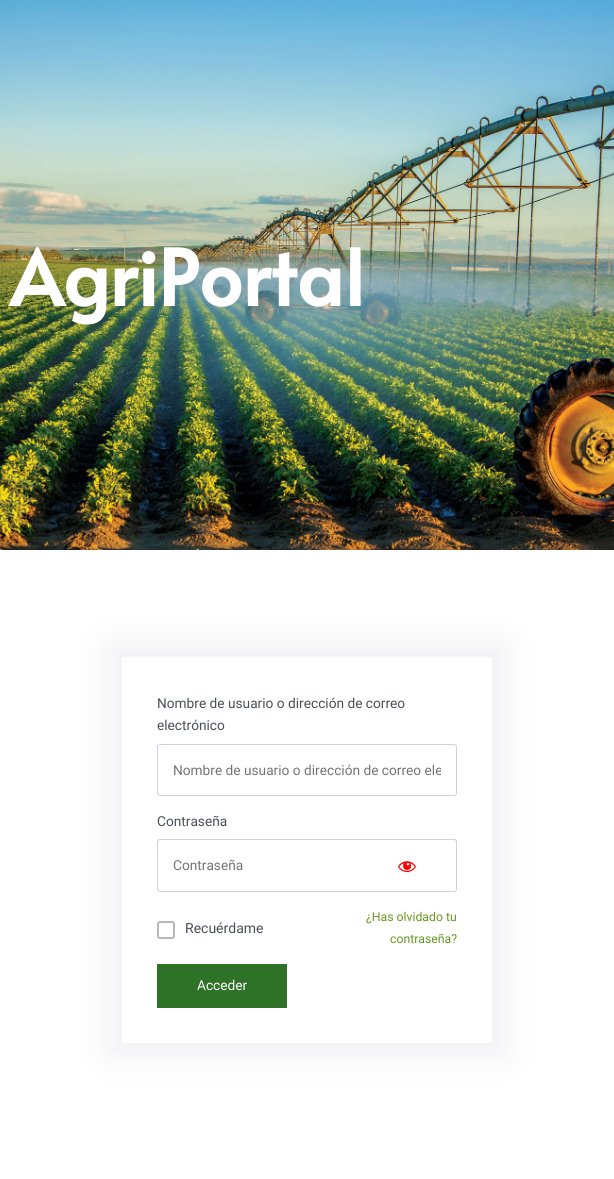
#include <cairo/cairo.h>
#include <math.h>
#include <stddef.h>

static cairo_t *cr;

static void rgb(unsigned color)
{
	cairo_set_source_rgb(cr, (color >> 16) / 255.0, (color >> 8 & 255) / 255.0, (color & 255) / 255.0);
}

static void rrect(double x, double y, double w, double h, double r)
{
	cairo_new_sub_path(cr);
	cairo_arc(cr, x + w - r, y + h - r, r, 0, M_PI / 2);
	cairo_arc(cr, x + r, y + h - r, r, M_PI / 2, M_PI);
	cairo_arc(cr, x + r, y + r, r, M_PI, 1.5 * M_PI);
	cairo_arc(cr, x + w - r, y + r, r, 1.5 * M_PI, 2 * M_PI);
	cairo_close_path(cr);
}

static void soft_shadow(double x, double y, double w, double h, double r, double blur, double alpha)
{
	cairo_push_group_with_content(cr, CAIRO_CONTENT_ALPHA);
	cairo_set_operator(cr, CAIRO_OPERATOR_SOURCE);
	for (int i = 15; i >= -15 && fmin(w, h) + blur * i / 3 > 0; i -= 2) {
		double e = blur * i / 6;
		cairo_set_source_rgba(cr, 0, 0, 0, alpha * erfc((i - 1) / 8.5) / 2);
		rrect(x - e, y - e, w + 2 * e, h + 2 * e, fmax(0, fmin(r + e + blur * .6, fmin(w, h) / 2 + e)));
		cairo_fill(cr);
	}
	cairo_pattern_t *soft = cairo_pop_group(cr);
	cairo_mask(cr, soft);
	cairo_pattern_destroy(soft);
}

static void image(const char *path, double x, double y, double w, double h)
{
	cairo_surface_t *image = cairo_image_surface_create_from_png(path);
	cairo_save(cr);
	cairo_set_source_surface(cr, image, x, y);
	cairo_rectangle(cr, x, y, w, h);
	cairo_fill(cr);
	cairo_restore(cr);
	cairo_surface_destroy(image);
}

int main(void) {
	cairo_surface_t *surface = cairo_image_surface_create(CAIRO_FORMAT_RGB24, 614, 1179);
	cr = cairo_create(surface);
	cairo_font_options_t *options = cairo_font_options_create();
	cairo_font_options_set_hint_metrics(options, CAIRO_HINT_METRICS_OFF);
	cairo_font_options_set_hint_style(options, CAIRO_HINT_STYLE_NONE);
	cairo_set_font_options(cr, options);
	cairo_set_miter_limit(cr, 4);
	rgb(0xffffff);
	cairo_paint(cr);
	image("img/1.png", 0, 0, 614, 550);
	cairo_save(cr);
	cairo_set_fill_rule(cr, CAIRO_FILL_RULE_EVEN_ODD);
	cairo_new_path(cr);
	cairo_move_to(cr, 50, 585);
	cairo_line_to(cr, 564, 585);
	cairo_line_to(cr, 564, 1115);
	cairo_line_to(cr, 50, 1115);
	cairo_close_path(cr);
	cairo_move_to(cr, 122, 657);
	cairo_line_to(cr, 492, 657);
	cairo_line_to(cr, 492, 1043);
	cairo_line_to(cr, 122, 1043);
	cairo_close_path(cr);
	cairo_clip(cr);
	rgb(0x020835);
	soft_shadow(108, 643, 398, 414, 0, 19, 0.06);
	cairo_restore(cr);
	rrect(157.5, 744.5, 299, 51, 2.5);
	rgb(0xcfcfe8);
	cairo_set_line_width(cr, 1);
	cairo_stroke(cr);
	rrect(157.5, 839.5, 299, 52, 2.5);
	cairo_stroke(cr);
	image("img/2.png", 398, 861, 18, 12);
	rrect(158, 922, 16, 16, 2);
	rgb(0xb7b7b7);
	cairo_set_line_width(cr, 2);
	cairo_stroke(cr);
	rgb(0x2e7227);
	cairo_rectangle(cr, 157, 964, 130, 44);
	cairo_fill(cr);
	cairo_select_font_face(cr, "Alata", CAIRO_FONT_SLANT_NORMAL, CAIRO_FONT_WEIGHT_BOLD);
	cairo_set_font_size(cr, 77);
	rgb(0xffffff);
	cairo_move_to(cr, 10, 306);
	cairo_show_text(cr, "AgriPortal");
	cairo_select_font_face(cr, "Roboto", CAIRO_FONT_SLANT_NORMAL, CAIRO_FONT_WEIGHT_NORMAL);
	cairo_set_font_size(cr, 13.7);
	rgb(0x4b4f58);
	cairo_move_to(cr, 157, 708);
	cairo_show_text(cr, "Nombre de usuario o dirección de correo");
	cairo_move_to(cr, 157, 730);
	cairo_show_text(cr, "electrónico");
	cairo_save(cr);
	cairo_rectangle(cr, 173, 762, 268, 16);
	cairo_clip(cr);
	rgb(0x757575);
	cairo_move_to(cr, 173, 775);
	cairo_show_text(cr, "Nombre de usuario o dirección de correo ele");
	cairo_restore(cr);
	cairo_move_to(cr, 157, 826);
	cairo_show_text(cr, "Contraseña");
	rgb(0x757575);
	cairo_move_to(cr, 173, 870);
	cairo_show_text(cr, "Contraseña");
	cairo_set_font_size(cr, 14);
	rgb(0x4b4f58);
	cairo_move_to(cr, 185, 933);
	cairo_show_text(cr, "Recuérdame");
	cairo_set_font_size(cr, 12.25);
	rgb(0x67981d);
	cairo_move_to(cr, 366, 921);
	cairo_show_text(cr, "¿Has olvidado tu");
	cairo_move_to(cr, 390, 943);
	cairo_show_text(cr, "contraseña?");
	cairo_set_font_size(cr, 13.7);
	rgb(0xffffff);
	cairo_move_to(cr, 197, 990);
	cairo_show_text(cr, "Acceder");
	cairo_surface_write_to_png(surface, "page.png");
	cairo_font_options_destroy(options);
	cairo_destroy(cr);
	cairo_surface_destroy(surface);
	return 0;
}
